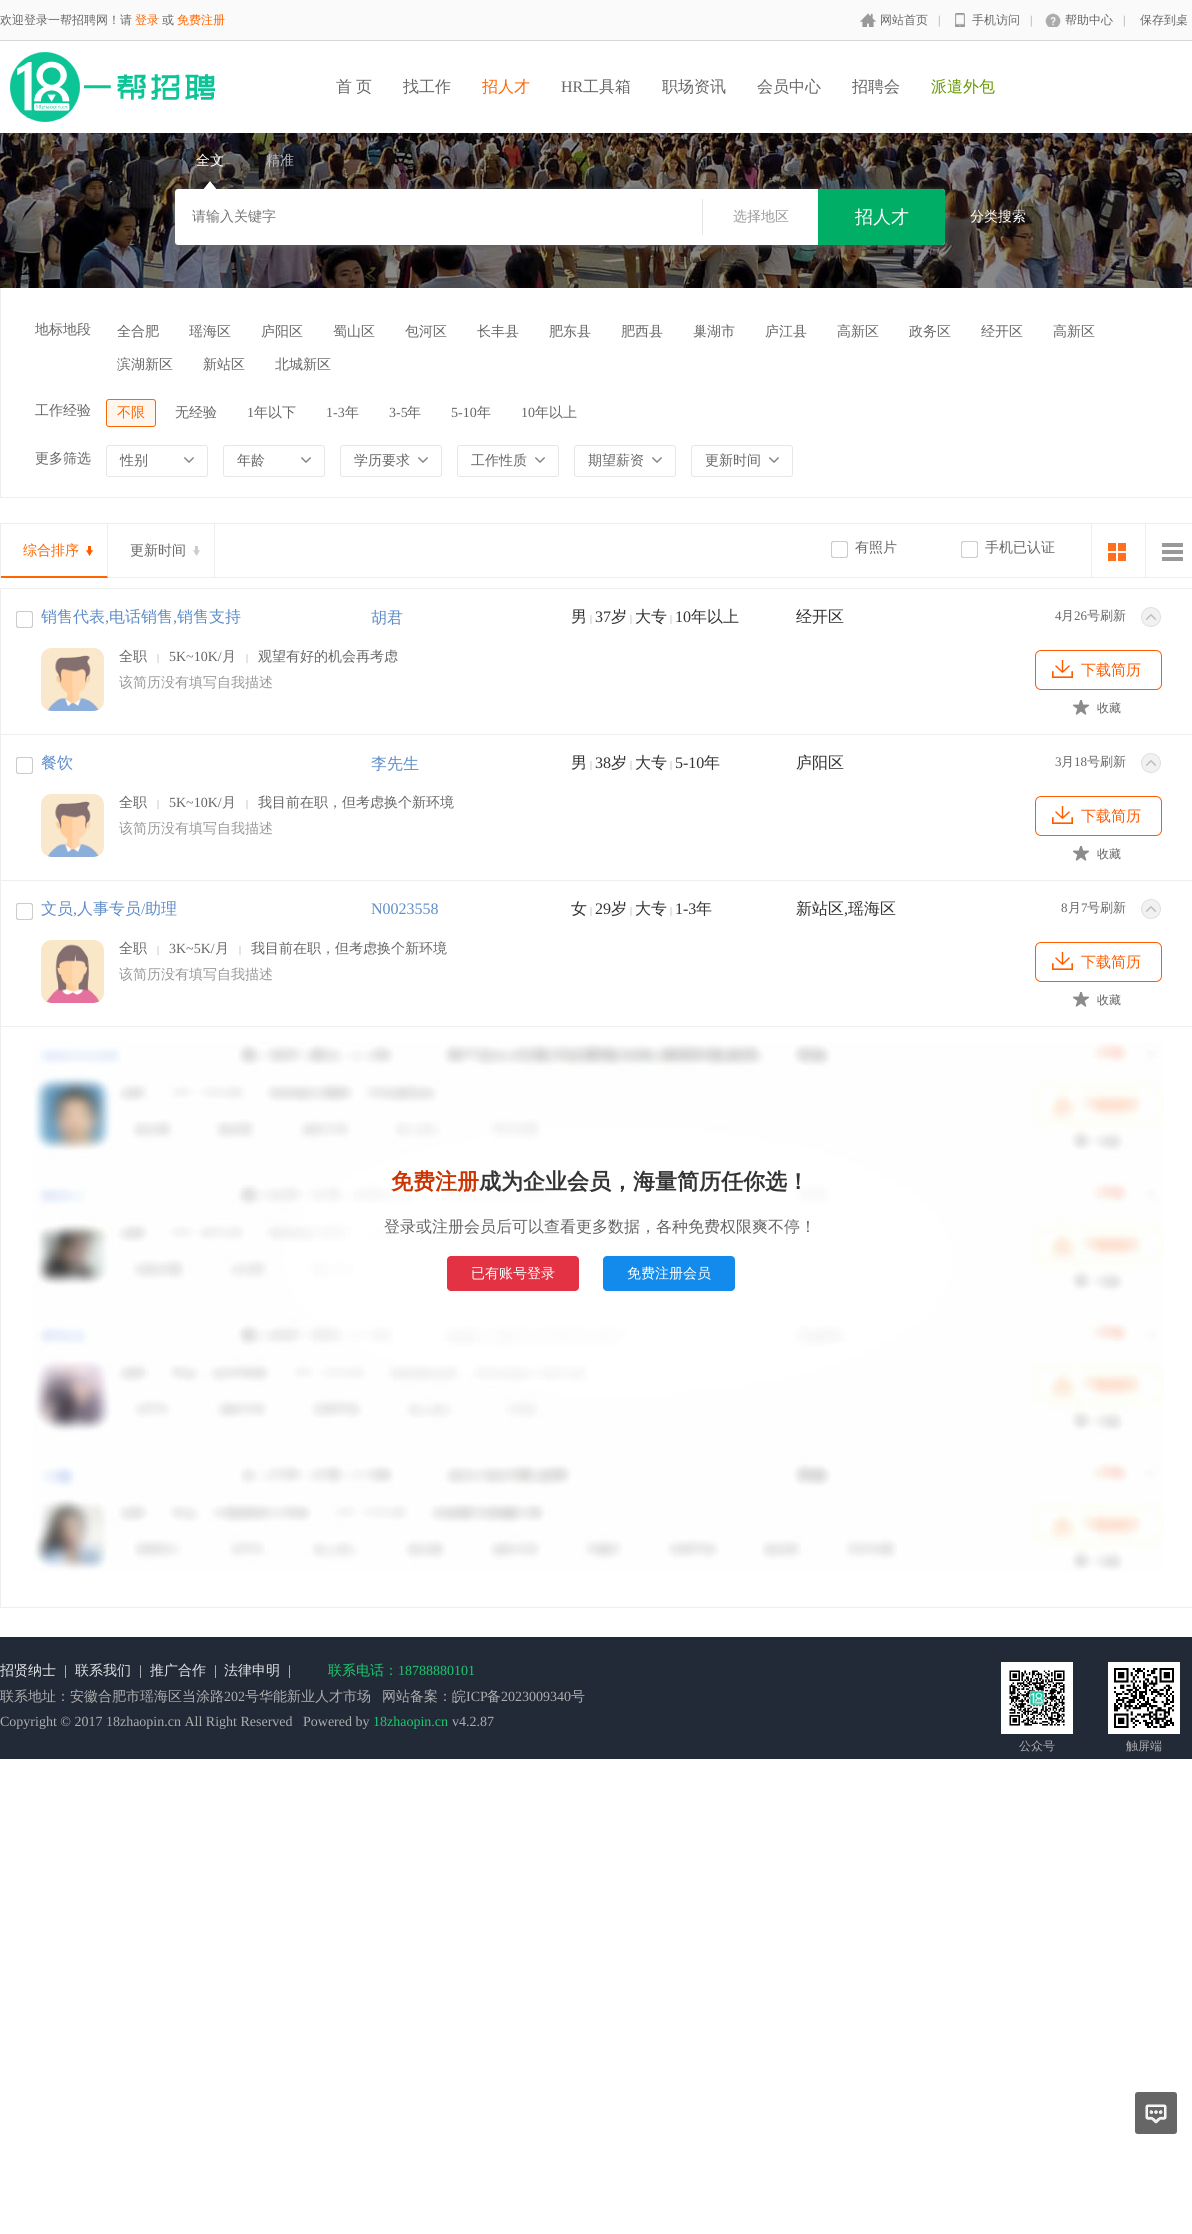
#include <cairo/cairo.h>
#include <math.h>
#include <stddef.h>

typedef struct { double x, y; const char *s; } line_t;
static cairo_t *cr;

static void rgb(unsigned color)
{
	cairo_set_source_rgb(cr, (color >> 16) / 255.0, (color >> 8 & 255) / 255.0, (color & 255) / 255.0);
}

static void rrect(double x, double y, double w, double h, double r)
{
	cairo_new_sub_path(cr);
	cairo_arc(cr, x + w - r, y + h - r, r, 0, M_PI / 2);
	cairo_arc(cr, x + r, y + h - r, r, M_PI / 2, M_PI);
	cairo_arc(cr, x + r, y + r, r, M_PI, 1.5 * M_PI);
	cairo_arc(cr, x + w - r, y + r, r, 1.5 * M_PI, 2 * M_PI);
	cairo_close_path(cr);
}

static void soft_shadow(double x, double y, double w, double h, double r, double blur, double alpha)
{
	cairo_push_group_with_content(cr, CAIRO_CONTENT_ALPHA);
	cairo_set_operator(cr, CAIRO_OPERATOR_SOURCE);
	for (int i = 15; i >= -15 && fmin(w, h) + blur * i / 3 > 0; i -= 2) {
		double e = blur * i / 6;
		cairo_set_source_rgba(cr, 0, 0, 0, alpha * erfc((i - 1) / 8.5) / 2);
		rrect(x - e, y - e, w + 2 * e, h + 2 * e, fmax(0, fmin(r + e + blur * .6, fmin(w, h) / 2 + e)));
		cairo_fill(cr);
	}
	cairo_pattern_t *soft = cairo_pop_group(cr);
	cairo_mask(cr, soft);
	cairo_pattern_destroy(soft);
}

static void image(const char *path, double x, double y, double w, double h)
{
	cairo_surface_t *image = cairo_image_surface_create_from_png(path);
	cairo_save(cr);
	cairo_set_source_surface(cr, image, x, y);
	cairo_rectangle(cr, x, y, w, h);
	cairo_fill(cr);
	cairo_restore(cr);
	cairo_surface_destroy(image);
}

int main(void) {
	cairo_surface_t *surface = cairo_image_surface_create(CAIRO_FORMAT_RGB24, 1192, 2234);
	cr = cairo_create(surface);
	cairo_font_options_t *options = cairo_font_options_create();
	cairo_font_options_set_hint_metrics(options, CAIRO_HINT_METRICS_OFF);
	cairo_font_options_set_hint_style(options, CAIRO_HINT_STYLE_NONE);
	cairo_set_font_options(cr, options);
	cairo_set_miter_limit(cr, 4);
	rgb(0xffffff);
	cairo_paint(cr);
	rgb(0xfafafa);
	cairo_rectangle(cr, 0, 0, 1192, 40);
	cairo_fill(cr);
	image("img/1.png", 860, 13, 16, 14);
	image("img/2.png", 955, 13, 10, 14);
	image("img/3.png", 1045, 13, 16, 14);
	rgb(0xd8d8d8);
	cairo_rectangle(cr, 0, 40, 1192, 1);
	cairo_fill(cr);
	image("img/4.png", 10, 52, 205, 70);
	image("img/5.png", 0, 133, 1192, 155);
	rgb(0x5d5b5b);
	soft_shadow(174, 189, 772, 58, 4, 2.5, 0.83);
	image("img/6.png", 203, 181, 14, 8);
	rgb(0xffffff);
	rrect(175, 189, 770, 56, 3);
	cairo_fill(cr);
	rgb(0xe6e6e6);
	cairo_rectangle(cr, 702, 199, 1, 36);
	cairo_fill(cr);
	rgb(0x00ae66);
	cairo_new_path(cr);
	cairo_move_to(cr, 818, 189);
	cairo_line_to(cr, 942, 189);
	cairo_curve_to(cr, 943.5, 189, 945, 190.5, 945, 192);
	cairo_line_to(cr, 945, 242);
	cairo_curve_to(cr, 945, 243.5, 943.5, 245, 942, 245);
	cairo_line_to(cr, 818, 245);
	cairo_close_path(cr);
	cairo_fill(cr);
	rgb(0xeeeeee);
	cairo_rectangle(cr, 0, 497, 1192, 1);
	cairo_fill(cr);
	cairo_rectangle(cr, 0, 288, 1, 210);
	cairo_fill(cr);
	rgb(0xfff7ee);
	rrect(106.5, 399.5, 49, 27, 2.5);
	cairo_fill_preserve(cr);
	rgb(0xff6600);
	cairo_set_line_width(cr, 1);
	cairo_stroke(cr);
	image("img/7.png", 184, 457, 10, 6);
	rrect(106.5, 445.5, 101, 31, 2.5);
	rgb(0xe7e7e7);
	cairo_stroke(cr);
	image("img/7.png", 301, 457, 10, 6);
	rrect(223.5, 445.5, 101, 31, 2.5);
	cairo_stroke(cr);
	image("img/7.png", 418, 457, 10, 6);
	rrect(340.5, 445.5, 101, 31, 2.5);
	cairo_stroke(cr);
	image("img/7.png", 535, 457, 10, 6);
	rrect(457.5, 445.5, 101, 31, 2.5);
	cairo_stroke(cr);
	image("img/7.png", 652, 457, 10, 6);
	rrect(574.5, 445.5, 101, 31, 2.5);
	cairo_stroke(cr);
	image("img/7.png", 769, 457, 10, 6);
	rrect(691.5, 445.5, 101, 31, 2.5);
	cairo_stroke(cr);
	cairo_rectangle(cr, 0.5, 523.5, 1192, 54);
	rgb(0xeeeeee);
	cairo_stroke(cr);
	image("img/8.png", 86, 546, 7, 10);
	cairo_new_path(cr);
	cairo_move_to(cr, 108, 524);
	cairo_line_to(cr, 108, 578);
	cairo_line_to(cr, 107, 576);
	cairo_line_to(cr, 107, 524);
	cairo_close_path(cr);
	cairo_fill(cr);
	rgb(0xff6600);
	cairo_new_path(cr);
	cairo_move_to(cr, 108, 578);
	cairo_line_to(cr, 1, 578);
	cairo_line_to(cr, 1, 576);
	cairo_line_to(cr, 107, 576);
	cairo_close_path(cr);
	cairo_fill(cr);
	image("img/9.png", 193, 546, 7, 10);
	rgb(0xeeeeee);
	cairo_rectangle(cr, 214, 524, 1, 53);
	cairo_fill(cr);
	image("img/10.png", 831, 541, 17, 17);
	image("img/10.png", 961, 541, 17, 17);
	image("img/11.png", 1108, 543, 18, 18);
	cairo_rectangle(cr, 1091, 524, 1, 53);
	cairo_fill(cr);
	image("img/12.png", 1162, 543, 21, 18);
	cairo_rectangle(cr, 1145, 524, 1, 53);
	cairo_fill(cr);
	cairo_rectangle(cr, 0.5, 588.5, 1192, 1019);
	cairo_stroke(cr);
	cairo_rectangle(cr, 1, 734, 1191, 1);
	cairo_fill(cr);
	image("img/10.png", 16, 611, 17, 17);
	image("img/13.png", 1141, 607, 20, 20);
	image("img/14.png", 41, 648, 63, 63);
	image("img/15.png", 1052, 660, 21, 18);
	rrect(1035.5, 650.5, 126, 39, 5.5);
	rgb(0xff5c00);
	cairo_stroke(cr);
	image("img/16.png", 1073, 700, 16, 15);
	rgb(0xeeeeee);
	cairo_rectangle(cr, 1, 880, 1191, 1);
	cairo_fill(cr);
	image("img/10.png", 16, 757, 17, 17);
	image("img/13.png", 1141, 753, 20, 20);
	image("img/14.png", 41, 794, 63, 63);
	image("img/15.png", 1052, 806, 21, 18);
	rrect(1035.5, 796.5, 126, 39, 5.5);
	rgb(0xff5c00);
	cairo_stroke(cr);
	image("img/16.png", 1073, 846, 16, 15);
	rgb(0xeeeeee);
	cairo_rectangle(cr, 1, 1026, 1191, 1);
	cairo_fill(cr);
	image("img/10.png", 16, 903, 17, 17);
	image("img/13.png", 1141, 899, 20, 20);
	image("img/17.png", 41, 940, 63, 63);
	image("img/15.png", 1052, 952, 21, 18);
	rrect(1035.5, 942.5, 126, 39, 5.5);
	rgb(0xff5c00);
	cairo_stroke(cr);
	image("img/16.png", 1073, 992, 16, 15);
	image("img/18.png", 33, 1042, 1131, 530);
	rgb(0xe33244);
	rrect(447, 1256, 132, 35, 4);
	cairo_fill(cr);
	rgb(0x128bed);
	rrect(603, 1256, 132, 35, 4);
	cairo_fill(cr);
	rgb(0x222a37);
	cairo_rectangle(cr, 0, 1637, 1192, 122);
	cairo_fill(cr);
	cairo_rectangle(cr, 1003, 1664, 68, 68);
	rgb(0xffffff);
	cairo_set_line_width(cr, 4);
	cairo_stroke(cr);
	image("img/19.png", 1005, 1666, 64, 64);
	cairo_rectangle(cr, 1110, 1664, 68, 68);
	cairo_stroke(cr);
	image("img/20.png", 1112, 1666, 64, 64);
	image("img/21.png", 1135, 2092, 42, 42);
	cairo_select_font_face(cr, "WenQuanYi Zen Hei Medium", CAIRO_FONT_SLANT_NORMAL, CAIRO_FONT_WEIGHT_NORMAL);
	cairo_set_font_size(cr, 12);
	rgb(0x666666);
	cairo_move_to(cr, 0, 24);
	cairo_show_text(cr, "欢迎登录一帮招聘网！请");
	rgb(0xff6600);
	cairo_move_to(cr, 135, 24);
	cairo_show_text(cr, "登录");
	rgb(0x666666);
	cairo_move_to(cr, 162, 24);
	cairo_show_text(cr, "或");
	rgb(0xff6600);
	cairo_move_to(cr, 177, 24);
	cairo_show_text(cr, "免费注册");
	rgb(0x666666);
	cairo_move_to(cr, 880, 24);
	cairo_show_text(cr, "网站首页");
	cairo_select_font_face(cr, "Liberation Serif", CAIRO_FONT_SLANT_NORMAL, CAIRO_FONT_WEIGHT_NORMAL);
	rgb(0x999999);
	cairo_move_to(cr, 938, 24);
	cairo_show_text(cr, "|");
	cairo_select_font_face(cr, "WenQuanYi Zen Hei Medium", CAIRO_FONT_SLANT_NORMAL, CAIRO_FONT_WEIGHT_NORMAL);
	rgb(0x666666);
	cairo_move_to(cr, 972, 24);
	cairo_show_text(cr, "手机访问");
	cairo_select_font_face(cr, "Liberation Serif", CAIRO_FONT_SLANT_NORMAL, CAIRO_FONT_WEIGHT_NORMAL);
	rgb(0x999999);
	cairo_move_to(cr, 1030, 24);
	cairo_show_text(cr, "|");
	cairo_select_font_face(cr, "WenQuanYi Zen Hei Medium", CAIRO_FONT_SLANT_NORMAL, CAIRO_FONT_WEIGHT_NORMAL);
	rgb(0x666666);
	cairo_move_to(cr, 1065, 24);
	cairo_show_text(cr, "帮助中心");
	cairo_select_font_face(cr, "Liberation Serif", CAIRO_FONT_SLANT_NORMAL, CAIRO_FONT_WEIGHT_NORMAL);
	rgb(0x999999);
	cairo_move_to(cr, 1123, 24);
	cairo_show_text(cr, "|");
	cairo_select_font_face(cr, "WenQuanYi Zen Hei Medium", CAIRO_FONT_SLANT_NORMAL, CAIRO_FONT_WEIGHT_NORMAL);
	rgb(0x666666);
	cairo_move_to(cr, 1140, 24);
	cairo_show_text(cr, "保存到桌");
	cairo_set_font_size(cr, 16);
	{
		static const line_t items[] = {
			{336, 92, "首"},
			{356, 92, "页"},
			{403, 92, "找工作"},
		};
		for (size_t i = 0; i < sizeof items / sizeof *items; i++) {
			cairo_move_to(cr, items[i].x, items[i].y);
			cairo_show_text(cr, items[i].s);
		}
	}
	rgb(0xff6600);
	cairo_move_to(cr, 482, 92);
	cairo_show_text(cr, "招人才");
	cairo_select_font_face(cr, "Liberation Serif", CAIRO_FONT_SLANT_NORMAL, CAIRO_FONT_WEIGHT_NORMAL);
	rgb(0x666666);
	cairo_move_to(cr, 561, 92);
	cairo_show_text(cr, "HR");
	cairo_select_font_face(cr, "WenQuanYi Zen Hei Medium", CAIRO_FONT_SLANT_NORMAL, CAIRO_FONT_WEIGHT_NORMAL);
	{
		static const line_t items[] = {
			{583, 92, "工具箱"},
			{662, 92, "职场资讯"},
			{757, 92, "会员中心"},
			{852, 92, "招聘会"},
		};
		for (size_t i = 0; i < sizeof items / sizeof *items; i++) {
			cairo_move_to(cr, items[i].x, items[i].y);
			cairo_show_text(cr, items[i].s);
		}
	}
	rgb(0x669900);
	cairo_move_to(cr, 931, 92);
	cairo_show_text(cr, "派遣外包");
	cairo_set_font_size(cr, 14);
	rgb(0xffffff);
	cairo_move_to(cr, 196, 165);
	cairo_show_text(cr, "全文");
	rgb(0xbbbcbe);
	cairo_move_to(cr, 266, 165);
	cairo_show_text(cr, "精准");
	rgb(0x757575);
	cairo_move_to(cr, 192, 221);
	cairo_show_text(cr, "请输入关键字");
	rgb(0x999999);
	cairo_move_to(cr, 733, 221);
	cairo_show_text(cr, "选择地区");
	cairo_set_font_size(cr, 18);
	rgb(0xffffff);
	cairo_move_to(cr, 855, 223);
	cairo_show_text(cr, "招人才");
	cairo_set_font_size(cr, 14);
	cairo_move_to(cr, 970, 221);
	cairo_show_text(cr, "分类搜索");
	rgb(0x666666);
	{
		static const line_t items[] = {
			{35, 334, "地标地段"},
			{117, 336, "全合肥"},
			{189, 336, "瑶海区"},
			{261, 336, "庐阳区"},
			{333, 336, "蜀山区"},
			{405, 336, "包河区"},
			{477, 336, "长丰县"},
			{549, 336, "肥东县"},
			{621, 336, "肥西县"},
			{693, 336, "巢湖市"},
			{765, 336, "庐江县"},
			{837, 336, "高新区"},
			{909, 336, "政务区"},
			{981, 336, "经开区"},
			{1053, 336, "高新区"},
			{117, 369, "滨湖新区"},
			{203, 369, "新站区"},
			{275, 369, "北城新区"},
			{35, 415, "工作经验"},
		};
		for (size_t i = 0; i < sizeof items / sizeof *items; i++) {
			cairo_move_to(cr, items[i].x, items[i].y);
			cairo_show_text(cr, items[i].s);
		}
	}
	rgb(0xff6600);
	cairo_move_to(cr, 117, 417);
	cairo_show_text(cr, "不限");
	rgb(0x666666);
	cairo_move_to(cr, 175, 417);
	cairo_show_text(cr, "无经验");
	cairo_select_font_face(cr, "Liberation Serif", CAIRO_FONT_SLANT_NORMAL, CAIRO_FONT_WEIGHT_NORMAL);
	cairo_move_to(cr, 247, 417);
	cairo_show_text(cr, "1");
	cairo_select_font_face(cr, "WenQuanYi Zen Hei Medium", CAIRO_FONT_SLANT_NORMAL, CAIRO_FONT_WEIGHT_NORMAL);
	cairo_move_to(cr, 254, 417);
	cairo_show_text(cr, "年以下");
	cairo_select_font_face(cr, "Liberation Serif", CAIRO_FONT_SLANT_NORMAL, CAIRO_FONT_WEIGHT_NORMAL);
	cairo_move_to(cr, 326, 417);
	cairo_show_text(cr, "1-3");
	cairo_select_font_face(cr, "WenQuanYi Zen Hei Medium", CAIRO_FONT_SLANT_NORMAL, CAIRO_FONT_WEIGHT_NORMAL);
	cairo_move_to(cr, 345, 417);
	cairo_show_text(cr, "年");
	cairo_select_font_face(cr, "Liberation Serif", CAIRO_FONT_SLANT_NORMAL, CAIRO_FONT_WEIGHT_NORMAL);
	cairo_move_to(cr, 389, 417);
	cairo_show_text(cr, "3-5");
	cairo_select_font_face(cr, "WenQuanYi Zen Hei Medium", CAIRO_FONT_SLANT_NORMAL, CAIRO_FONT_WEIGHT_NORMAL);
	cairo_move_to(cr, 407, 417);
	cairo_show_text(cr, "年");
	cairo_select_font_face(cr, "Liberation Serif", CAIRO_FONT_SLANT_NORMAL, CAIRO_FONT_WEIGHT_NORMAL);
	cairo_move_to(cr, 451, 417);
	cairo_show_text(cr, "5-10");
	cairo_select_font_face(cr, "WenQuanYi Zen Hei Medium", CAIRO_FONT_SLANT_NORMAL, CAIRO_FONT_WEIGHT_NORMAL);
	cairo_move_to(cr, 477, 417);
	cairo_show_text(cr, "年");
	cairo_select_font_face(cr, "Liberation Serif", CAIRO_FONT_SLANT_NORMAL, CAIRO_FONT_WEIGHT_NORMAL);
	cairo_move_to(cr, 521, 417);
	cairo_show_text(cr, "10");
	cairo_select_font_face(cr, "WenQuanYi Zen Hei Medium", CAIRO_FONT_SLANT_NORMAL, CAIRO_FONT_WEIGHT_NORMAL);
	{
		static const line_t items[] = {
			{535, 417, "年以上"},
			{35, 463, "更多筛选"},
			{120, 465, "性别"},
			{237, 465, "年龄"},
			{354, 465, "学历要求"},
			{471, 465, "工作性质"},
			{588, 465, "期望薪资"},
			{705, 465, "更新时间"},
		};
		for (size_t i = 0; i < sizeof items / sizeof *items; i++) {
			cairo_move_to(cr, items[i].x, items[i].y);
			cairo_show_text(cr, items[i].s);
		}
	}
	rgb(0xff6600);
	cairo_move_to(cr, 23, 555);
	cairo_show_text(cr, "综合排序");
	rgb(0x666666);
	{
		static const line_t items[] = {
			{130, 555, "更新时间"},
			{855, 552, "有照片"},
			{985, 552, "手机已认证"},
		};
		for (size_t i = 0; i < sizeof items / sizeof *items; i++) {
			cairo_move_to(cr, items[i].x, items[i].y);
			cairo_show_text(cr, items[i].s);
		}
	}
	cairo_set_font_size(cr, 16);
	rgb(0x5f8dc9);
	cairo_move_to(cr, 41, 622);
	cairo_show_text(cr, "销售代表");
	cairo_select_font_face(cr, "Liberation Serif", CAIRO_FONT_SLANT_NORMAL, CAIRO_FONT_WEIGHT_NORMAL);
	cairo_move_to(cr, 105, 622);
	cairo_show_text(cr, ",");
	cairo_select_font_face(cr, "WenQuanYi Zen Hei Medium", CAIRO_FONT_SLANT_NORMAL, CAIRO_FONT_WEIGHT_NORMAL);
	cairo_move_to(cr, 109, 622);
	cairo_show_text(cr, "电话销售");
	cairo_select_font_face(cr, "Liberation Serif", CAIRO_FONT_SLANT_NORMAL, CAIRO_FONT_WEIGHT_NORMAL);
	cairo_move_to(cr, 173, 622);
	cairo_show_text(cr, ",");
	cairo_select_font_face(cr, "WenQuanYi Zen Hei Medium", CAIRO_FONT_SLANT_NORMAL, CAIRO_FONT_WEIGHT_NORMAL);
	cairo_move_to(cr, 177, 622);
	cairo_show_text(cr, "销售支持");
	cairo_move_to(cr, 371, 623);
	cairo_show_text(cr, "胡君");
	rgb(0x333333);
	cairo_move_to(cr, 571, 622);
	cairo_show_text(cr, "男");
	cairo_select_font_face(cr, "Liberation Serif", CAIRO_FONT_SLANT_NORMAL, CAIRO_FONT_WEIGHT_NORMAL);
	cairo_set_font_size(cr, 10);
	rgb(0x999999);
	cairo_move_to(cr, 590, 622);
	cairo_show_text(cr, "|");
	cairo_set_font_size(cr, 16);
	rgb(0x333333);
	cairo_move_to(cr, 595, 622);
	cairo_show_text(cr, "37");
	cairo_select_font_face(cr, "WenQuanYi Zen Hei Medium", CAIRO_FONT_SLANT_NORMAL, CAIRO_FONT_WEIGHT_NORMAL);
	cairo_move_to(cr, 611, 622);
	cairo_show_text(cr, "岁");
	cairo_select_font_face(cr, "Liberation Serif", CAIRO_FONT_SLANT_NORMAL, CAIRO_FONT_WEIGHT_NORMAL);
	cairo_set_font_size(cr, 10);
	rgb(0x999999);
	cairo_move_to(cr, 630, 622);
	cairo_show_text(cr, "|");
	cairo_select_font_face(cr, "WenQuanYi Zen Hei Medium", CAIRO_FONT_SLANT_NORMAL, CAIRO_FONT_WEIGHT_NORMAL);
	cairo_set_font_size(cr, 16);
	rgb(0x333333);
	cairo_move_to(cr, 635, 622);
	cairo_show_text(cr, "大专");
	cairo_select_font_face(cr, "Liberation Serif", CAIRO_FONT_SLANT_NORMAL, CAIRO_FONT_WEIGHT_NORMAL);
	cairo_set_font_size(cr, 10);
	rgb(0x999999);
	cairo_move_to(cr, 670, 622);
	cairo_show_text(cr, "|");
	cairo_set_font_size(cr, 16);
	rgb(0x333333);
	cairo_move_to(cr, 675, 622);
	cairo_show_text(cr, "10");
	cairo_select_font_face(cr, "WenQuanYi Zen Hei Medium", CAIRO_FONT_SLANT_NORMAL, CAIRO_FONT_WEIGHT_NORMAL);
	cairo_move_to(cr, 691, 622);
	cairo_show_text(cr, "年以上");
	cairo_move_to(cr, 796, 622);
	cairo_show_text(cr, "经开区");
	cairo_select_font_face(cr, "Liberation Serif", CAIRO_FONT_SLANT_NORMAL, CAIRO_FONT_WEIGHT_NORMAL);
	cairo_set_font_size(cr, 13);
	rgb(0x666666);
	cairo_move_to(cr, 1055, 620);
	cairo_show_text(cr, "4");
	cairo_select_font_face(cr, "WenQuanYi Zen Hei Medium", CAIRO_FONT_SLANT_NORMAL, CAIRO_FONT_WEIGHT_NORMAL);
	cairo_move_to(cr, 1061, 620);
	cairo_show_text(cr, "月");
	cairo_select_font_face(cr, "Liberation Serif", CAIRO_FONT_SLANT_NORMAL, CAIRO_FONT_WEIGHT_NORMAL);
	cairo_move_to(cr, 1074, 620);
	cairo_show_text(cr, "26");
	cairo_select_font_face(cr, "WenQuanYi Zen Hei Medium", CAIRO_FONT_SLANT_NORMAL, CAIRO_FONT_WEIGHT_NORMAL);
	cairo_move_to(cr, 1087, 620);
	cairo_show_text(cr, "号刷新");
	cairo_set_font_size(cr, 14);
	cairo_move_to(cr, 119, 661);
	cairo_show_text(cr, "全职");
	cairo_select_font_face(cr, "Liberation Serif", CAIRO_FONT_SLANT_NORMAL, CAIRO_FONT_WEIGHT_NORMAL);
	cairo_set_font_size(cr, 10);
	rgb(0x999999);
	cairo_move_to(cr, 157, 661);
	cairo_show_text(cr, "|");
	cairo_set_font_size(cr, 14);
	rgb(0x666666);
	cairo_move_to(cr, 169, 661);
	cairo_show_text(cr, "5K~10K/");
	cairo_select_font_face(cr, "WenQuanYi Zen Hei Medium", CAIRO_FONT_SLANT_NORMAL, CAIRO_FONT_WEIGHT_NORMAL);
	cairo_move_to(cr, 222, 661);
	cairo_show_text(cr, "月");
	cairo_select_font_face(cr, "Liberation Serif", CAIRO_FONT_SLANT_NORMAL, CAIRO_FONT_WEIGHT_NORMAL);
	cairo_set_font_size(cr, 10);
	rgb(0x999999);
	cairo_move_to(cr, 246, 661);
	cairo_show_text(cr, "|");
	cairo_select_font_face(cr, "WenQuanYi Zen Hei Medium", CAIRO_FONT_SLANT_NORMAL, CAIRO_FONT_WEIGHT_NORMAL);
	cairo_set_font_size(cr, 14);
	rgb(0x666666);
	cairo_move_to(cr, 258, 661);
	cairo_show_text(cr, "观望有好的机会再考虑");
	rgb(0x999999);
	cairo_move_to(cr, 119, 687);
	cairo_show_text(cr, "该简历没有填写自我描述");
	cairo_set_font_size(cr, 15);
	rgb(0xff5c00);
	cairo_move_to(cr, 1081, 675);
	cairo_show_text(cr, "下载简历");
	cairo_set_font_size(cr, 12);
	rgb(0x666666);
	cairo_move_to(cr, 1097, 712);
	cairo_show_text(cr, "收藏");
	cairo_set_font_size(cr, 16);
	rgb(0x5f8dc9);
	cairo_move_to(cr, 41, 768);
	cairo_show_text(cr, "餐饮");
	cairo_move_to(cr, 371, 769);
	cairo_show_text(cr, "李先生");
	rgb(0x333333);
	cairo_move_to(cr, 571, 768);
	cairo_show_text(cr, "男");
	cairo_select_font_face(cr, "Liberation Serif", CAIRO_FONT_SLANT_NORMAL, CAIRO_FONT_WEIGHT_NORMAL);
	cairo_set_font_size(cr, 10);
	rgb(0x999999);
	cairo_move_to(cr, 590, 768);
	cairo_show_text(cr, "|");
	cairo_set_font_size(cr, 16);
	rgb(0x333333);
	cairo_move_to(cr, 595, 768);
	cairo_show_text(cr, "38");
	cairo_select_font_face(cr, "WenQuanYi Zen Hei Medium", CAIRO_FONT_SLANT_NORMAL, CAIRO_FONT_WEIGHT_NORMAL);
	cairo_move_to(cr, 611, 768);
	cairo_show_text(cr, "岁");
	cairo_select_font_face(cr, "Liberation Serif", CAIRO_FONT_SLANT_NORMAL, CAIRO_FONT_WEIGHT_NORMAL);
	cairo_set_font_size(cr, 10);
	rgb(0x999999);
	cairo_move_to(cr, 630, 768);
	cairo_show_text(cr, "|");
	cairo_select_font_face(cr, "WenQuanYi Zen Hei Medium", CAIRO_FONT_SLANT_NORMAL, CAIRO_FONT_WEIGHT_NORMAL);
	cairo_set_font_size(cr, 16);
	rgb(0x333333);
	cairo_move_to(cr, 635, 768);
	cairo_show_text(cr, "大专");
	cairo_select_font_face(cr, "Liberation Serif", CAIRO_FONT_SLANT_NORMAL, CAIRO_FONT_WEIGHT_NORMAL);
	cairo_set_font_size(cr, 10);
	rgb(0x999999);
	cairo_move_to(cr, 670, 768);
	cairo_show_text(cr, "|");
	cairo_set_font_size(cr, 16);
	rgb(0x333333);
	cairo_move_to(cr, 675, 768);
	cairo_show_text(cr, "5-10");
	cairo_select_font_face(cr, "WenQuanYi Zen Hei Medium", CAIRO_FONT_SLANT_NORMAL, CAIRO_FONT_WEIGHT_NORMAL);
	cairo_move_to(cr, 704, 768);
	cairo_show_text(cr, "年");
	cairo_move_to(cr, 796, 768);
	cairo_show_text(cr, "庐阳区");
	cairo_select_font_face(cr, "Liberation Serif", CAIRO_FONT_SLANT_NORMAL, CAIRO_FONT_WEIGHT_NORMAL);
	cairo_set_font_size(cr, 13);
	rgb(0x666666);
	cairo_move_to(cr, 1055, 766);
	cairo_show_text(cr, "3");
	cairo_select_font_face(cr, "WenQuanYi Zen Hei Medium", CAIRO_FONT_SLANT_NORMAL, CAIRO_FONT_WEIGHT_NORMAL);
	cairo_move_to(cr, 1061, 766);
	cairo_show_text(cr, "月");
	cairo_select_font_face(cr, "Liberation Serif", CAIRO_FONT_SLANT_NORMAL, CAIRO_FONT_WEIGHT_NORMAL);
	cairo_move_to(cr, 1074, 766);
	cairo_show_text(cr, "18");
	cairo_select_font_face(cr, "WenQuanYi Zen Hei Medium", CAIRO_FONT_SLANT_NORMAL, CAIRO_FONT_WEIGHT_NORMAL);
	cairo_move_to(cr, 1087, 766);
	cairo_show_text(cr, "号刷新");
	cairo_set_font_size(cr, 14);
	cairo_move_to(cr, 119, 807);
	cairo_show_text(cr, "全职");
	cairo_select_font_face(cr, "Liberation Serif", CAIRO_FONT_SLANT_NORMAL, CAIRO_FONT_WEIGHT_NORMAL);
	cairo_set_font_size(cr, 10);
	rgb(0x999999);
	cairo_move_to(cr, 157, 807);
	cairo_show_text(cr, "|");
	cairo_set_font_size(cr, 14);
	rgb(0x666666);
	cairo_move_to(cr, 169, 807);
	cairo_show_text(cr, "5K~10K/");
	cairo_select_font_face(cr, "WenQuanYi Zen Hei Medium", CAIRO_FONT_SLANT_NORMAL, CAIRO_FONT_WEIGHT_NORMAL);
	cairo_move_to(cr, 222, 807);
	cairo_show_text(cr, "月");
	cairo_select_font_face(cr, "Liberation Serif", CAIRO_FONT_SLANT_NORMAL, CAIRO_FONT_WEIGHT_NORMAL);
	cairo_set_font_size(cr, 10);
	rgb(0x999999);
	cairo_move_to(cr, 246, 807);
	cairo_show_text(cr, "|");
	cairo_select_font_face(cr, "WenQuanYi Zen Hei Medium", CAIRO_FONT_SLANT_NORMAL, CAIRO_FONT_WEIGHT_NORMAL);
	cairo_set_font_size(cr, 14);
	rgb(0x666666);
	cairo_move_to(cr, 258, 807);
	cairo_show_text(cr, "我目前在职，但考虑换个新环境");
	rgb(0x999999);
	cairo_move_to(cr, 119, 833);
	cairo_show_text(cr, "该简历没有填写自我描述");
	cairo_set_font_size(cr, 15);
	rgb(0xff5c00);
	cairo_move_to(cr, 1081, 821);
	cairo_show_text(cr, "下载简历");
	cairo_set_font_size(cr, 12);
	rgb(0x666666);
	cairo_move_to(cr, 1097, 858);
	cairo_show_text(cr, "收藏");
	cairo_set_font_size(cr, 16);
	rgb(0x5f8dc9);
	cairo_move_to(cr, 41, 914);
	cairo_show_text(cr, "文员");
	cairo_select_font_face(cr, "Liberation Serif", CAIRO_FONT_SLANT_NORMAL, CAIRO_FONT_WEIGHT_NORMAL);
	cairo_move_to(cr, 73, 914);
	cairo_show_text(cr, ",");
	cairo_select_font_face(cr, "WenQuanYi Zen Hei Medium", CAIRO_FONT_SLANT_NORMAL, CAIRO_FONT_WEIGHT_NORMAL);
	cairo_move_to(cr, 77, 914);
	cairo_show_text(cr, "人事专员");
	cairo_select_font_face(cr, "Liberation Serif", CAIRO_FONT_SLANT_NORMAL, CAIRO_FONT_WEIGHT_NORMAL);
	cairo_move_to(cr, 141, 914);
	cairo_show_text(cr, "/");
	cairo_select_font_face(cr, "WenQuanYi Zen Hei Medium", CAIRO_FONT_SLANT_NORMAL, CAIRO_FONT_WEIGHT_NORMAL);
	cairo_move_to(cr, 145, 914);
	cairo_show_text(cr, "助理");
	cairo_select_font_face(cr, "Liberation Serif", CAIRO_FONT_SLANT_NORMAL, CAIRO_FONT_WEIGHT_NORMAL);
	cairo_move_to(cr, 371, 914);
	cairo_show_text(cr, "N0023558");
	cairo_select_font_face(cr, "WenQuanYi Zen Hei Medium", CAIRO_FONT_SLANT_NORMAL, CAIRO_FONT_WEIGHT_NORMAL);
	rgb(0x333333);
	cairo_move_to(cr, 571, 914);
	cairo_show_text(cr, "女");
	cairo_select_font_face(cr, "Liberation Serif", CAIRO_FONT_SLANT_NORMAL, CAIRO_FONT_WEIGHT_NORMAL);
	cairo_set_font_size(cr, 10);
	rgb(0x999999);
	cairo_move_to(cr, 590, 914);
	cairo_show_text(cr, "|");
	cairo_set_font_size(cr, 16);
	rgb(0x333333);
	cairo_move_to(cr, 595, 914);
	cairo_show_text(cr, "29");
	cairo_select_font_face(cr, "WenQuanYi Zen Hei Medium", CAIRO_FONT_SLANT_NORMAL, CAIRO_FONT_WEIGHT_NORMAL);
	cairo_move_to(cr, 611, 914);
	cairo_show_text(cr, "岁");
	cairo_select_font_face(cr, "Liberation Serif", CAIRO_FONT_SLANT_NORMAL, CAIRO_FONT_WEIGHT_NORMAL);
	cairo_set_font_size(cr, 10);
	rgb(0x999999);
	cairo_move_to(cr, 630, 914);
	cairo_show_text(cr, "|");
	cairo_select_font_face(cr, "WenQuanYi Zen Hei Medium", CAIRO_FONT_SLANT_NORMAL, CAIRO_FONT_WEIGHT_NORMAL);
	cairo_set_font_size(cr, 16);
	rgb(0x333333);
	cairo_move_to(cr, 635, 914);
	cairo_show_text(cr, "大专");
	cairo_select_font_face(cr, "Liberation Serif", CAIRO_FONT_SLANT_NORMAL, CAIRO_FONT_WEIGHT_NORMAL);
	cairo_set_font_size(cr, 10);
	rgb(0x999999);
	cairo_move_to(cr, 670, 914);
	cairo_show_text(cr, "|");
	cairo_set_font_size(cr, 16);
	rgb(0x333333);
	cairo_move_to(cr, 675, 914);
	cairo_show_text(cr, "1-3");
	cairo_select_font_face(cr, "WenQuanYi Zen Hei Medium", CAIRO_FONT_SLANT_NORMAL, CAIRO_FONT_WEIGHT_NORMAL);
	cairo_move_to(cr, 696, 914);
	cairo_show_text(cr, "年");
	cairo_move_to(cr, 796, 914);
	cairo_show_text(cr, "新站区");
	cairo_select_font_face(cr, "Liberation Serif", CAIRO_FONT_SLANT_NORMAL, CAIRO_FONT_WEIGHT_NORMAL);
	cairo_move_to(cr, 844, 914);
	cairo_show_text(cr, ",");
	cairo_select_font_face(cr, "WenQuanYi Zen Hei Medium", CAIRO_FONT_SLANT_NORMAL, CAIRO_FONT_WEIGHT_NORMAL);
	cairo_move_to(cr, 848, 914);
	cairo_show_text(cr, "瑶海区");
	cairo_select_font_face(cr, "Liberation Serif", CAIRO_FONT_SLANT_NORMAL, CAIRO_FONT_WEIGHT_NORMAL);
	cairo_set_font_size(cr, 13);
	rgb(0x666666);
	cairo_move_to(cr, 1061, 912);
	cairo_show_text(cr, "8");
	cairo_select_font_face(cr, "WenQuanYi Zen Hei Medium", CAIRO_FONT_SLANT_NORMAL, CAIRO_FONT_WEIGHT_NORMAL);
	cairo_move_to(cr, 1068, 912);
	cairo_show_text(cr, "月");
	cairo_select_font_face(cr, "Liberation Serif", CAIRO_FONT_SLANT_NORMAL, CAIRO_FONT_WEIGHT_NORMAL);
	cairo_move_to(cr, 1081, 912);
	cairo_show_text(cr, "7");
	cairo_select_font_face(cr, "WenQuanYi Zen Hei Medium", CAIRO_FONT_SLANT_NORMAL, CAIRO_FONT_WEIGHT_NORMAL);
	cairo_move_to(cr, 1087, 912);
	cairo_show_text(cr, "号刷新");
	cairo_set_font_size(cr, 14);
	cairo_move_to(cr, 119, 953);
	cairo_show_text(cr, "全职");
	cairo_select_font_face(cr, "Liberation Serif", CAIRO_FONT_SLANT_NORMAL, CAIRO_FONT_WEIGHT_NORMAL);
	cairo_set_font_size(cr, 10);
	rgb(0x999999);
	cairo_move_to(cr, 157, 953);
	cairo_show_text(cr, "|");
	cairo_set_font_size(cr, 14);
	rgb(0x666666);
	cairo_move_to(cr, 169, 953);
	cairo_show_text(cr, "3K~5K/");
	cairo_select_font_face(cr, "WenQuanYi Zen Hei Medium", CAIRO_FONT_SLANT_NORMAL, CAIRO_FONT_WEIGHT_NORMAL);
	cairo_move_to(cr, 215, 953);
	cairo_show_text(cr, "月");
	cairo_select_font_face(cr, "Liberation Serif", CAIRO_FONT_SLANT_NORMAL, CAIRO_FONT_WEIGHT_NORMAL);
	cairo_set_font_size(cr, 10);
	rgb(0x999999);
	cairo_move_to(cr, 239, 953);
	cairo_show_text(cr, "|");
	cairo_select_font_face(cr, "WenQuanYi Zen Hei Medium", CAIRO_FONT_SLANT_NORMAL, CAIRO_FONT_WEIGHT_NORMAL);
	cairo_set_font_size(cr, 14);
	rgb(0x666666);
	cairo_move_to(cr, 251, 953);
	cairo_show_text(cr, "我目前在职，但考虑换个新环境");
	rgb(0x999999);
	cairo_move_to(cr, 119, 979);
	cairo_show_text(cr, "该简历没有填写自我描述");
	cairo_set_font_size(cr, 15);
	rgb(0xff5c00);
	cairo_move_to(cr, 1081, 967);
	cairo_show_text(cr, "下载简历");
	cairo_set_font_size(cr, 12);
	rgb(0x666666);
	cairo_move_to(cr, 1097, 1004);
	cairo_show_text(cr, "收藏");
	cairo_select_font_face(cr, "WenQuanYi Zen Hei", CAIRO_FONT_SLANT_NORMAL, CAIRO_FONT_WEIGHT_BOLD);
	cairo_set_font_size(cr, 22);
	rgb(0xcc3300);
	cairo_move_to(cr, 391, 1189);
	cairo_show_text(cr, "免费注册");
	rgb(0x333333);
	cairo_move_to(cr, 479, 1189);
	cairo_show_text(cr, "成为企业会员，海量简历任你选！");
	cairo_select_font_face(cr, "WenQuanYi Zen Hei Medium", CAIRO_FONT_SLANT_NORMAL, CAIRO_FONT_WEIGHT_NORMAL);
	cairo_set_font_size(cr, 16);
	rgb(0x666666);
	cairo_move_to(cr, 384, 1232);
	cairo_show_text(cr, "登录或注册会员后可以查看更多数据，各种免费权限爽不停！");
	cairo_set_font_size(cr, 14);
	rgb(0xffffff);
	cairo_move_to(cr, 471, 1278);
	cairo_show_text(cr, "已有账号登录");
	cairo_move_to(cr, 627, 1278);
	cairo_show_text(cr, "免费注册会员");
	rgb(0xe1e4e6);
	cairo_move_to(cr, 0, 1675);
	cairo_show_text(cr, "招贤纳士");
	cairo_select_font_face(cr, "Liberation Serif", CAIRO_FONT_SLANT_NORMAL, CAIRO_FONT_WEIGHT_NORMAL);
	cairo_move_to(cr, 64, 1675);
	cairo_show_text(cr, "|");
	cairo_select_font_face(cr, "WenQuanYi Zen Hei Medium", CAIRO_FONT_SLANT_NORMAL, CAIRO_FONT_WEIGHT_NORMAL);
	cairo_move_to(cr, 75, 1675);
	cairo_show_text(cr, "联系我们");
	cairo_select_font_face(cr, "Liberation Serif", CAIRO_FONT_SLANT_NORMAL, CAIRO_FONT_WEIGHT_NORMAL);
	cairo_move_to(cr, 139, 1675);
	cairo_show_text(cr, "|");
	cairo_select_font_face(cr, "WenQuanYi Zen Hei Medium", CAIRO_FONT_SLANT_NORMAL, CAIRO_FONT_WEIGHT_NORMAL);
	cairo_move_to(cr, 150, 1675);
	cairo_show_text(cr, "推广合作");
	cairo_select_font_face(cr, "Liberation Serif", CAIRO_FONT_SLANT_NORMAL, CAIRO_FONT_WEIGHT_NORMAL);
	cairo_move_to(cr, 214, 1675);
	cairo_show_text(cr, "|");
	cairo_select_font_face(cr, "WenQuanYi Zen Hei Medium", CAIRO_FONT_SLANT_NORMAL, CAIRO_FONT_WEIGHT_NORMAL);
	cairo_move_to(cr, 224, 1675);
	cairo_show_text(cr, "法律申明");
	cairo_select_font_face(cr, "Liberation Serif", CAIRO_FONT_SLANT_NORMAL, CAIRO_FONT_WEIGHT_NORMAL);
	cairo_move_to(cr, 288, 1675);
	cairo_show_text(cr, "|");
	cairo_select_font_face(cr, "WenQuanYi Zen Hei Medium", CAIRO_FONT_SLANT_NORMAL, CAIRO_FONT_WEIGHT_NORMAL);
	rgb(0x1acb6d);
	cairo_move_to(cr, 328, 1675);
	cairo_show_text(cr, "联系电话：");
	cairo_select_font_face(cr, "Liberation Serif", CAIRO_FONT_SLANT_NORMAL, CAIRO_FONT_WEIGHT_NORMAL);
	cairo_move_to(cr, 398, 1675);
	cairo_show_text(cr, "18788880101");
	cairo_select_font_face(cr, "WenQuanYi Zen Hei Medium", CAIRO_FONT_SLANT_NORMAL, CAIRO_FONT_WEIGHT_NORMAL);
	rgb(0xadadad);
	cairo_move_to(cr, 0, 1701);
	cairo_show_text(cr, "联系地址：安徽合肥市瑶海区当涂路");
	cairo_select_font_face(cr, "Liberation Serif", CAIRO_FONT_SLANT_NORMAL, CAIRO_FONT_WEIGHT_NORMAL);
	cairo_move_to(cr, 224, 1701);
	cairo_show_text(cr, "202");
	cairo_select_font_face(cr, "WenQuanYi Zen Hei Medium", CAIRO_FONT_SLANT_NORMAL, CAIRO_FONT_WEIGHT_NORMAL);
	cairo_move_to(cr, 245, 1701);
	cairo_show_text(cr, "号华能新业人才市场");
	cairo_move_to(cr, 382, 1701);
	cairo_show_text(cr, "网站备案：皖");
	cairo_select_font_face(cr, "Liberation Serif", CAIRO_FONT_SLANT_NORMAL, CAIRO_FONT_WEIGHT_NORMAL);
	cairo_move_to(cr, 466, 1701);
	cairo_show_text(cr, "ICP");
	cairo_select_font_face(cr, "WenQuanYi Zen Hei Medium", CAIRO_FONT_SLANT_NORMAL, CAIRO_FONT_WEIGHT_NORMAL);
	cairo_move_to(cr, 487, 1701);
	cairo_show_text(cr, "备");
	cairo_select_font_face(cr, "Liberation Serif", CAIRO_FONT_SLANT_NORMAL, CAIRO_FONT_WEIGHT_NORMAL);
	cairo_move_to(cr, 501, 1701);
	cairo_show_text(cr, "2023009340");
	cairo_select_font_face(cr, "WenQuanYi Zen Hei Medium", CAIRO_FONT_SLANT_NORMAL, CAIRO_FONT_WEIGHT_NORMAL);
	cairo_move_to(cr, 571, 1701);
	cairo_show_text(cr, "号");
	cairo_select_font_face(cr, "Liberation Serif", CAIRO_FONT_SLANT_NORMAL, CAIRO_FONT_WEIGHT_NORMAL);
	cairo_move_to(cr, 0, 1726);
	cairo_show_text(cr, "Copyright © 2017 18zhaopin.cn All Right Reserved");
	cairo_move_to(cr, 303, 1726);
	cairo_show_text(cr, "Powered by");
	rgb(0x1acb6d);
	cairo_move_to(cr, 373, 1726);
	cairo_show_text(cr, "18zhaopin.cn");
	rgb(0xadadad);
	cairo_move_to(cr, 452, 1726);
	cairo_show_text(cr, "v4.2.87");
	cairo_select_font_face(cr, "WenQuanYi Zen Hei Medium", CAIRO_FONT_SLANT_NORMAL, CAIRO_FONT_WEIGHT_NORMAL);
	cairo_set_font_size(cr, 12);
	cairo_move_to(cr, 1019, 1750);
	cairo_show_text(cr, "公众号");
	cairo_move_to(cr, 1126, 1750);
	cairo_show_text(cr, "触屏端");
	cairo_surface_write_to_png(surface, "page.png");
	cairo_font_options_destroy(options);
	cairo_destroy(cr);
	cairo_surface_destroy(surface);
	return 0;
}
